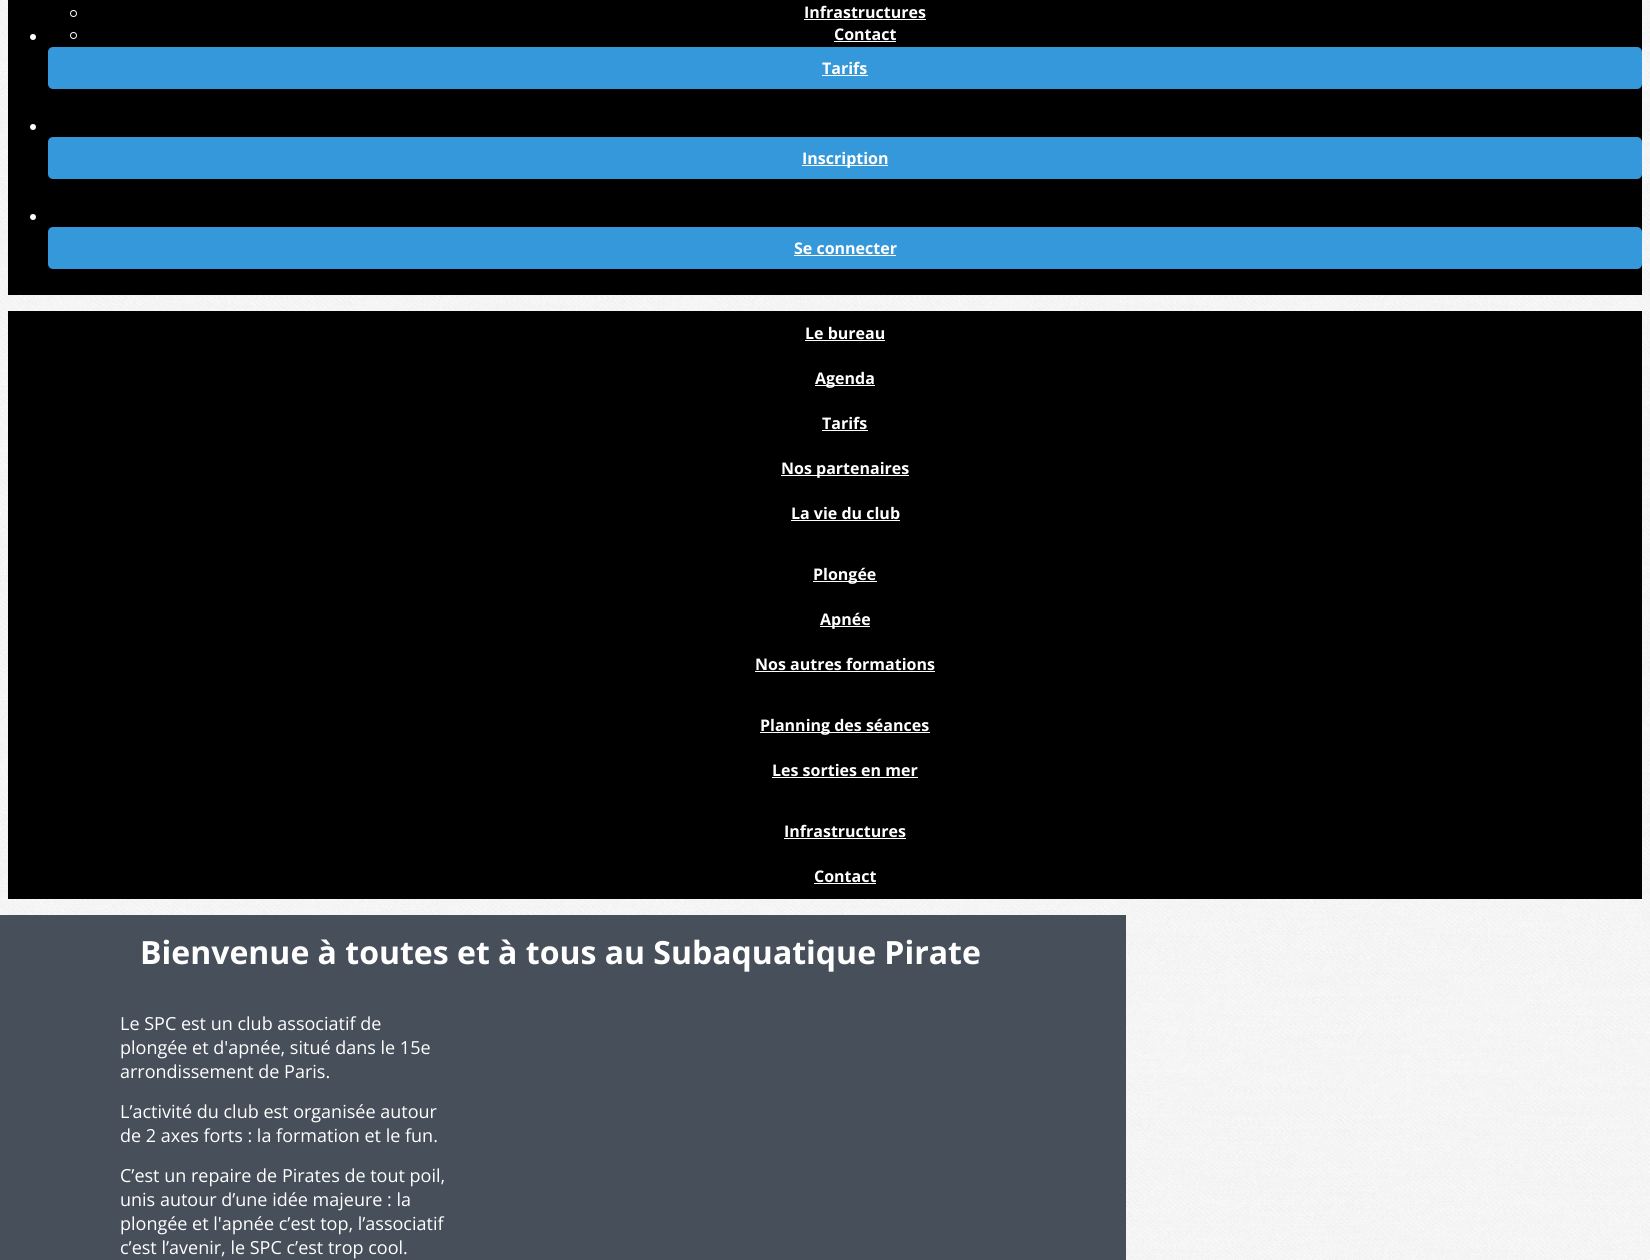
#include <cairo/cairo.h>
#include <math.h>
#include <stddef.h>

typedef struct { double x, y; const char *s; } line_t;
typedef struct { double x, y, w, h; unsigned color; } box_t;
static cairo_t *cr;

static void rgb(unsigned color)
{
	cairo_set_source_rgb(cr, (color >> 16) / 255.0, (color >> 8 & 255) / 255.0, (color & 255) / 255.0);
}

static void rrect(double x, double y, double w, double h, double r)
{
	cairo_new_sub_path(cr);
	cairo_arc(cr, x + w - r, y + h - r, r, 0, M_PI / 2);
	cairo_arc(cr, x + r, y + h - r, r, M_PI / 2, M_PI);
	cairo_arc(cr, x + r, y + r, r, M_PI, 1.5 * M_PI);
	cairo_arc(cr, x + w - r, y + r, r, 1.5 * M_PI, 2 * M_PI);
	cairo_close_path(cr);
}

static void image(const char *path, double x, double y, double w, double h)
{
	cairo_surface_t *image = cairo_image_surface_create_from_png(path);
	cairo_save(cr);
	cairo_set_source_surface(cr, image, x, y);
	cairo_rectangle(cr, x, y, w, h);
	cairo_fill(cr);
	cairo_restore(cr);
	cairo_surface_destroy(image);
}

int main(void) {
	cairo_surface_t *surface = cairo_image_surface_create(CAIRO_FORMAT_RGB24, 1650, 1260);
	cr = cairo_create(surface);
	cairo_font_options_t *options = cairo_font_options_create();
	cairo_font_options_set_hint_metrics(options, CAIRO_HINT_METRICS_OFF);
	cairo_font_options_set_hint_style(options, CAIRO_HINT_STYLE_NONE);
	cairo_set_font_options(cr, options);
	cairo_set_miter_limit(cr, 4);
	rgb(0xffffff);
	cairo_paint(cr);
	image("img/1.png", 0, 0, 1650, 1260);
	rgb(0x000000);
	cairo_rectangle(cr, 8, 0, 1634, 295);
	cairo_fill(cr);
	cairo_arc(cr, 73.5, 13.5, 3, 0, 2 * M_PI);
	rgb(0xffffff);
	cairo_set_line_width(cr, 1);
	cairo_stroke(cr);
	cairo_rectangle(cr, 804, 19, 122, 1);
	cairo_fill(cr);
	cairo_arc(cr, 73.5, 35.5, 3, 0, 2 * M_PI);
	cairo_stroke(cr);
	cairo_rectangle(cr, 834, 41, 62, 1);
	cairo_fill(cr);
	cairo_arc(cr, 33, 37, 3, 0, 2 * M_PI);
	cairo_fill(cr);
	rgb(0x3498db);
	rrect(48, 47, 1594, 42, 5);
	cairo_fill(cr);
	rgb(0xffffff);
	cairo_rectangle(cr, 822, 75, 46, 1);
	cairo_fill(cr);
	cairo_arc(cr, 33, 127, 3, 0, 2 * M_PI);
	cairo_fill(cr);
	rgb(0x3498db);
	rrect(48, 137, 1594, 42, 5);
	cairo_fill(cr);
	rgb(0xffffff);
	cairo_rectangle(cr, 802, 165, 86, 1);
	cairo_fill(cr);
	cairo_arc(cr, 33, 217, 3, 0, 2 * M_PI);
	cairo_fill(cr);
	rgb(0x3498db);
	rrect(48, 227, 1594, 42, 5);
	cairo_fill(cr);
	{
		static const box_t items[] = {
			{794, 255, 102, 1, 0xffffff},
			{8, 311, 1634, 588, 0x000000},
			{805, 340, 80, 1, 0xffffff},
			{815, 385, 60, 1, 0xffffff},
			{822, 430, 46, 1, 0xffffff},
			{781, 475, 128, 1, 0xffffff},
			{791, 520, 109, 1, 0xffffff},
			{813, 581, 64, 1, 0xffffff},
			{820, 626, 50, 1, 0xffffff},
			{755, 671, 180, 1, 0xffffff},
			{760, 732, 170, 1, 0xffffff},
			{772, 777, 146, 1, 0xffffff},
			{784, 838, 122, 1, 0xffffff},
			{814, 883, 62, 1, 0xffffff},
			{0, 915, 1126, 345, 0x47505a},
		};
		for (size_t i = 0; i < sizeof items / sizeof *items; i++) {
			rgb(items[i].color);
			cairo_rectangle(cr, items[i].x, items[i].y, items[i].w, items[i].h);
			cairo_fill(cr);
		}
	}
	cairo_select_font_face(cr, "Open Sans", CAIRO_FONT_SLANT_NORMAL, CAIRO_FONT_WEIGHT_BOLD);
	cairo_set_font_size(cr, 16);
	rgb(0xffffff);
	{
		static const line_t items[] = {
			{804, 18, "Infrastructures"},
			{834, 40, "Contact"},
			{822, 74, "Tarifs"},
			{802, 164, "Inscription"},
			{794, 254, "Se connecter"},
			{805, 339, "Le bureau"},
			{815, 384, "Agenda"},
			{822, 429, "Tarifs"},
			{781, 474, "Nos partenaires"},
			{791, 519, "La vie du club"},
			{813, 580, "Plongée"},
			{820, 625, "Apnée"},
			{755, 670, "Nos autres formations"},
			{760, 731, "Planning des séances"},
			{772, 776, "Les sorties en mer"},
			{784, 837, "Infrastructures"},
			{814, 882, "Contact"},
		};
		for (size_t i = 0; i < sizeof items / sizeof *items; i++) {
			cairo_move_to(cr, items[i].x, items[i].y);
			cairo_show_text(cr, items[i].s);
		}
	}
	cairo_set_font_size(cr, 32);
	cairo_move_to(cr, 140, 964);
	cairo_show_text(cr, "Bienvenue à toutes et à tous au Subaquatique Pirate");
	cairo_select_font_face(cr, "Open Sans", CAIRO_FONT_SLANT_NORMAL, CAIRO_FONT_WEIGHT_NORMAL);
	cairo_set_font_size(cr, 18);
	{
		static const line_t items[] = {
			{120, 1030, "Le SPC est un club associatif de"},
			{120, 1054, "plongée et d'apnée, situé dans le 15e"},
			{120, 1078, "arrondissement de Paris."},
			{120, 1118, "L’activité du club est organisée autour"},
			{120, 1142, "de 2 axes forts : la formation et le fun."},
			{120, 1182, "C’est un repaire de Pirates de tout poil,"},
			{120, 1206, "unis autour d’une idée majeure : la"},
			{120, 1230, "plongée et l'apnée c’est top, l’associatif"},
			{120, 1254, "c’est l’avenir, le SPC c’est trop cool."},
		};
		for (size_t i = 0; i < sizeof items / sizeof *items; i++) {
			cairo_move_to(cr, items[i].x, items[i].y);
			cairo_show_text(cr, items[i].s);
		}
	}
	cairo_surface_write_to_png(surface, "page.png");
	cairo_font_options_destroy(options);
	cairo_destroy(cr);
	cairo_surface_destroy(surface);
	return 0;
}
